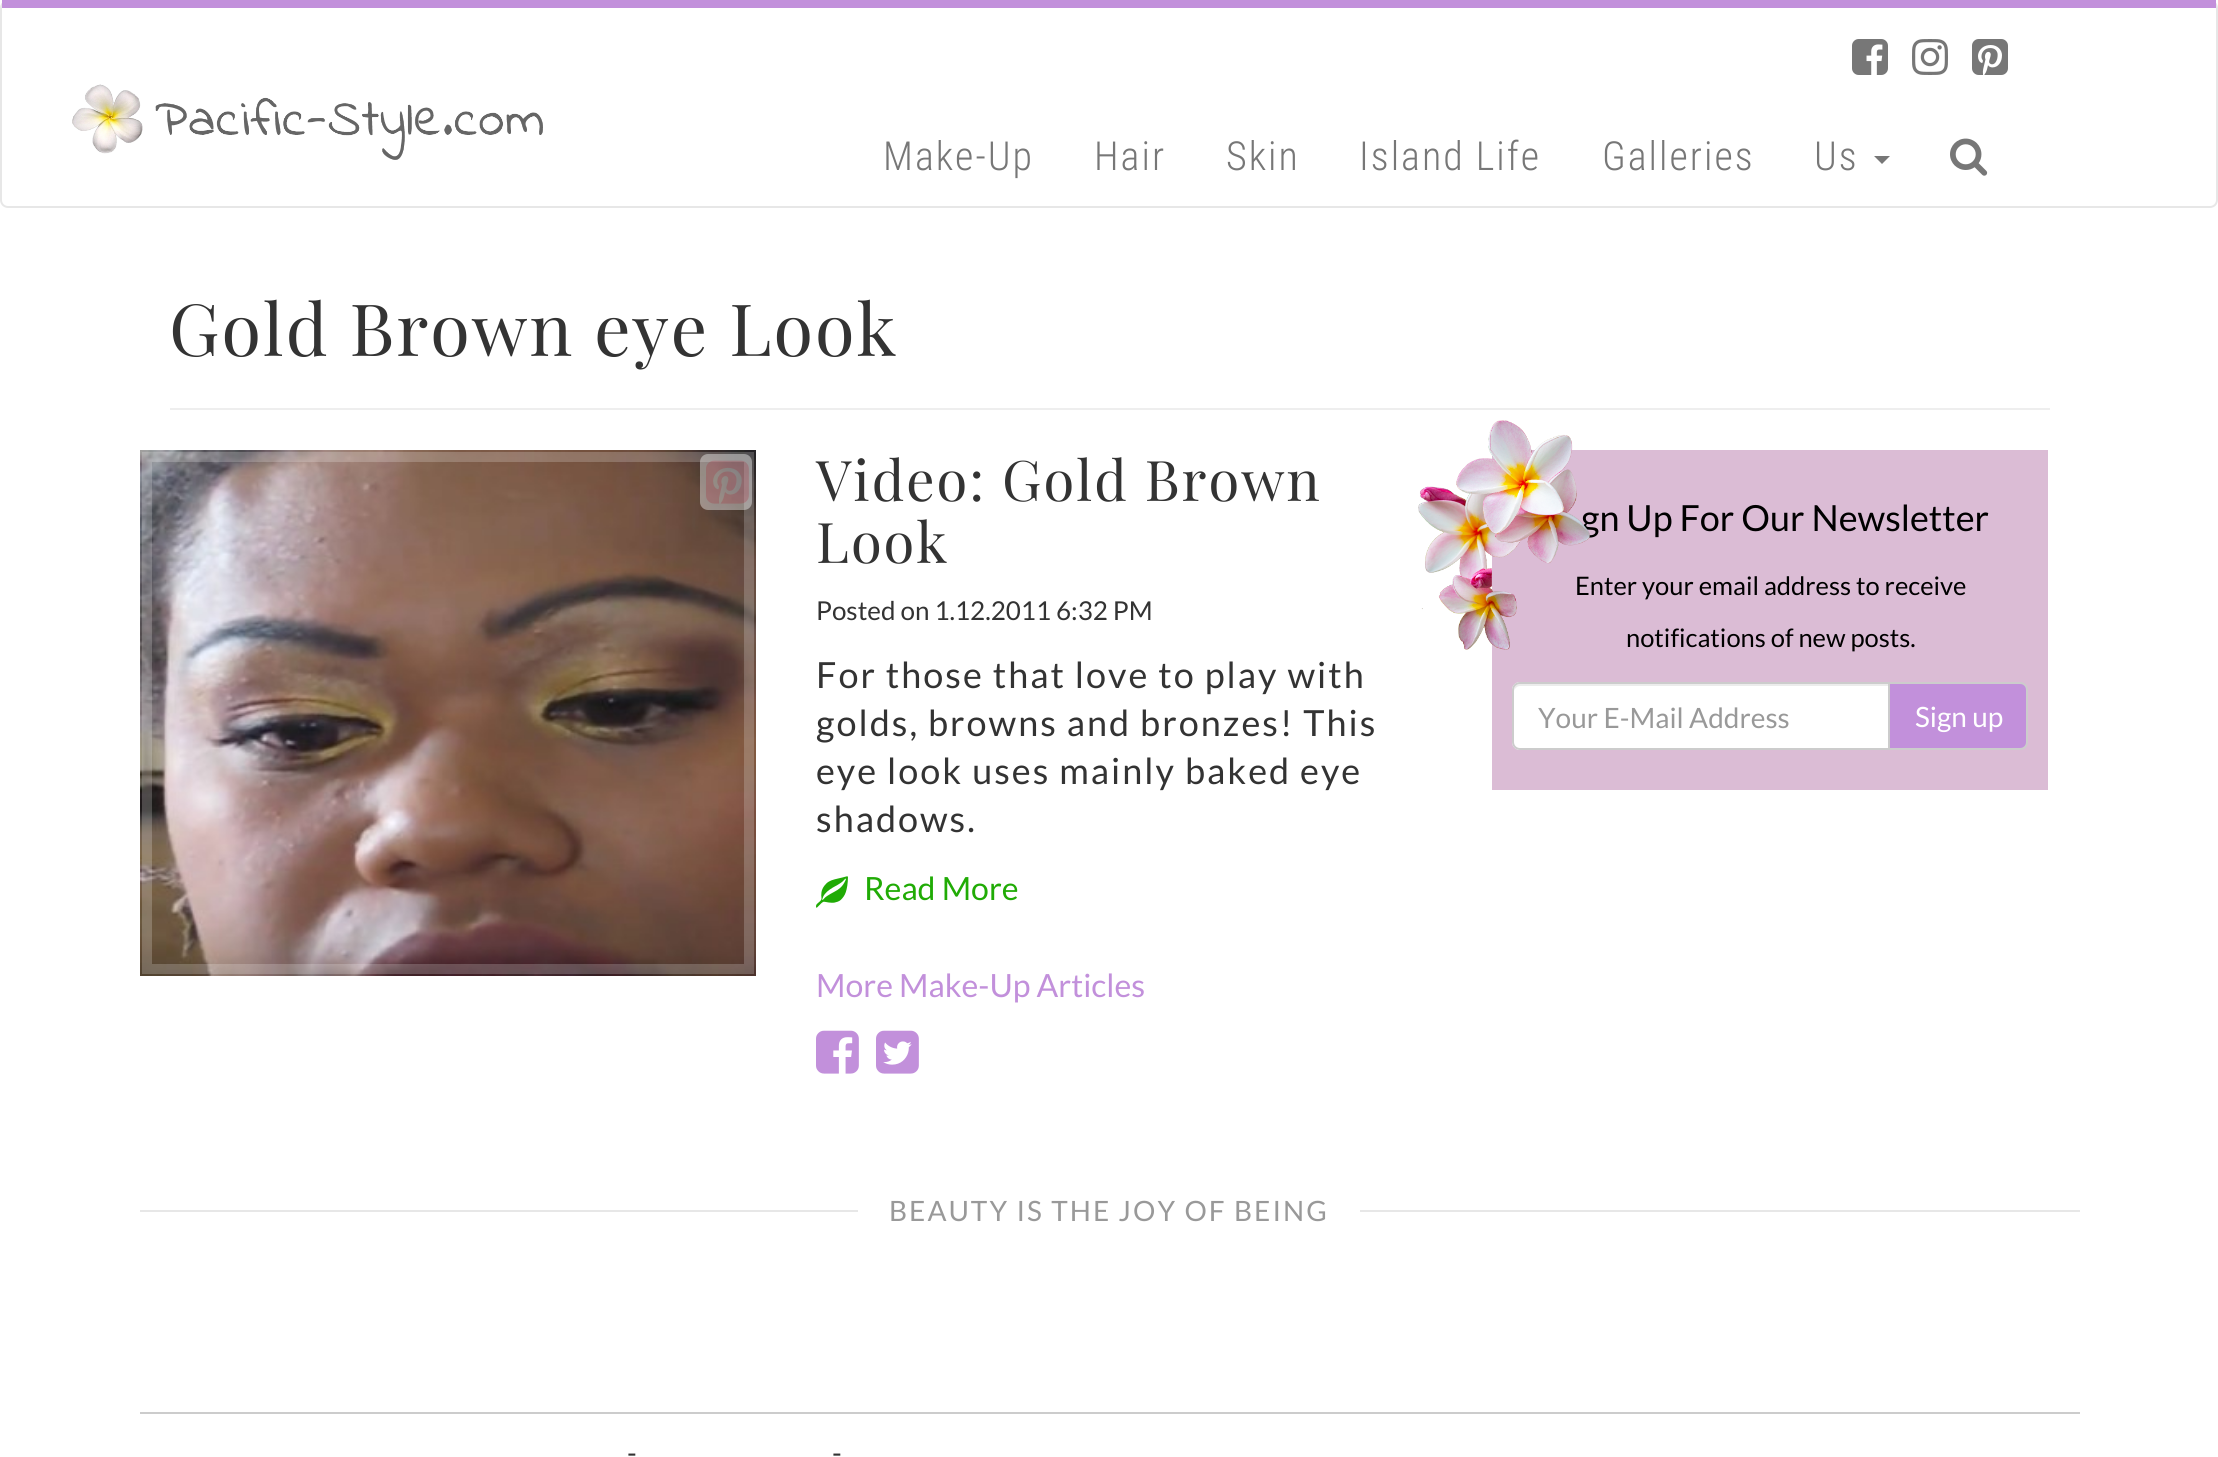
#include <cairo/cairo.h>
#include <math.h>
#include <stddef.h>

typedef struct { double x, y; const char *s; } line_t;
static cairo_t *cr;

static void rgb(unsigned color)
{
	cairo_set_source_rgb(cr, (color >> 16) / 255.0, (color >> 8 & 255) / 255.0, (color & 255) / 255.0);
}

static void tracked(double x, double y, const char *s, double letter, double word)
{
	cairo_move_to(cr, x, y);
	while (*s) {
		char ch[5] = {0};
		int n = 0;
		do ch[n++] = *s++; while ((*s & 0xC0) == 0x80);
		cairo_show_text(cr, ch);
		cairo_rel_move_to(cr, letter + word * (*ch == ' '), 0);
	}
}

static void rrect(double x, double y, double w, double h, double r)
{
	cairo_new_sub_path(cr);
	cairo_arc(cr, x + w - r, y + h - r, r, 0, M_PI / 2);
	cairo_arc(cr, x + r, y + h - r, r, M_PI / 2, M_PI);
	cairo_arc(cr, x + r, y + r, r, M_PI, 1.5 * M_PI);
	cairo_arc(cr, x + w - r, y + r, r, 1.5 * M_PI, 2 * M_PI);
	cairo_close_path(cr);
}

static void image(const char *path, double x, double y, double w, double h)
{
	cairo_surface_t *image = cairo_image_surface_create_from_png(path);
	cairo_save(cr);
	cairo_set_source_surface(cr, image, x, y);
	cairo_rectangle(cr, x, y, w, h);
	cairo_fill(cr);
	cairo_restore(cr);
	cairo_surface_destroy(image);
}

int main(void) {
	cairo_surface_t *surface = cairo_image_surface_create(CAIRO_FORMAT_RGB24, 2218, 1457);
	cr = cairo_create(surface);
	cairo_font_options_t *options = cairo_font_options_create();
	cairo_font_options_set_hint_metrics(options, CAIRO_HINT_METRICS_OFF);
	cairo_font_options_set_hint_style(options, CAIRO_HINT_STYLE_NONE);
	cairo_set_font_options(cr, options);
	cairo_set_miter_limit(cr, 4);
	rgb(0xffffff);
	cairo_paint(cr);
	rrect(1, 1, 2216, 206, 7);
	rgb(0xe7e7e7);
	cairo_stroke(cr);
	rgb(0xc290db);
	cairo_rectangle(cr, 2, 0, 2214, 8);
	cairo_fill(cr);
	image("img/1.png", 1852, 39, 36, 36);
	image("img/2.png", 1912, 39, 36, 36);
	image("img/3.png", 1972, 39, 36, 36);
	image("img/4.png", 72, 84, 471, 76);
	rgb(0x777777);
	cairo_new_path(cr);
	cairo_move_to(cr, 1874, 156);
	cairo_line_to(cr, 1890, 156);
	cairo_line_to(cr, 1882, 164);
	cairo_close_path(cr);
	cairo_fill(cr);
	image("img/5.png", 1950, 138, 38, 38);
	rgb(0xeeeeee);
	cairo_rectangle(cr, 170, 408, 1880, 2);
	cairo_fill(cr);
	rgb(0xe7e7e7);
	cairo_rectangle(cr, 140, 1210, 1940, 2);
	cairo_fill(cr);
	image("img/6.png", 140, 450, 616, 526);
	cairo_rectangle(cr, 147, 457, 602, 512);
	cairo_set_source_rgba(cr, 1, 1, 1, 0.2);
	cairo_set_line_width(cr, 10);
	cairo_stroke(cr);
	cairo_set_source_rgba(cr, 1, 1, 1, 0.4);
	rrect(700, 454, 52, 56, 8);
	cairo_fill(cr);
	image("img/7.png", 706, 460, 43, 44);
	image("img/8.png", 816, 876, 32, 32);
	image("img/9.png", 816, 1030, 43, 44);
	image("img/10.png", 876, 1030, 43, 44);
	rgb(0xdbbcd5);
	cairo_rectangle(cr, 1492, 450, 556, 340);
	cairo_fill(cr);
	rgb(0xffffff);
	cairo_new_path(cr);
	cairo_move_to(cr, 1520, 682);
	cairo_line_to(cr, 1890, 682);
	cairo_line_to(cr, 1890, 750);
	cairo_line_to(cr, 1520, 750);
	cairo_curve_to(cr, 1515.5, 750, 1512, 746.5, 1512, 742);
	cairo_line_to(cr, 1512, 690);
	cairo_curve_to(cr, 1512, 685.5, 1515.5, 682, 1520, 682);
	cairo_close_path(cr);
	cairo_fill(cr);
	rgb(0xececec);
	cairo_new_path(cr);
	cairo_move_to(cr, 1520, 686);
	cairo_line_to(cr, 1888, 686);
	cairo_line_to(cr, 1888, 684);
	cairo_line_to(cr, 1520, 684);
	cairo_curve_to(cr, 1515, 684, 1514, 688, 1514, 692);
	cairo_curve_to(cr, 1514, 689, 1517, 686, 1520, 686);
	cairo_close_path(cr);
	cairo_fill(cr);
	cairo_new_path(cr);
	cairo_move_to(cr, 1520, 683);
	cairo_line_to(cr, 1889, 683);
	cairo_line_to(cr, 1889, 749);
	cairo_line_to(cr, 1520, 749);
	cairo_curve_to(cr, 1516, 749, 1513, 746, 1513, 742);
	cairo_line_to(cr, 1513, 690);
	cairo_curve_to(cr, 1513, 686, 1516, 683, 1520, 683);
	cairo_close_path(cr);
	rgb(0xcccccc);
	cairo_set_line_width(cr, 2);
	cairo_stroke(cr);
	rgb(0xc290db);
	cairo_new_path(cr);
	cairo_move_to(cr, 1889, 683);
	cairo_line_to(cr, 2020, 683);
	cairo_curve_to(cr, 2024, 683, 2027, 686, 2027, 690);
	cairo_line_to(cr, 2027, 742);
	cairo_curve_to(cr, 2027, 746, 2024, 749, 2020, 749);
	cairo_line_to(cr, 1889, 749);
	cairo_close_path(cr);
	cairo_fill_preserve(cr);
	rgb(0xcccccc);
	cairo_stroke(cr);
	rgb(0xffffff);
	cairo_rectangle(cr, 858, 1210, 502, 2);
	cairo_fill(cr);
	rgb(0xcccccc);
	cairo_rectangle(cr, 140, 1412, 1940, 2);
	cairo_fill(cr);
	cairo_select_font_face(cr, "Roboto Condensed Light", CAIRO_FONT_SLANT_NORMAL, CAIRO_FONT_WEIGHT_NORMAL);
	cairo_set_font_size(cr, 40);
	rgb(0x777777);
	{
		static const line_t items[] = {
			{883, 170, "Make-Up"},
			{1094, 170, "Hair"},
			{1226, 170, "Skin"},
			{1359, 170, "Island Life"},
			{1602, 170, "Galleries"},
			{1814, 170, "Us"},
		};
		for (size_t i = 0; i < sizeof items / sizeof *items; i++) {
			tracked(items[i].x, items[i].y, items[i].s, 2, 0);
		}
	}
	cairo_select_font_face(cr, "Playfair Display", CAIRO_FONT_SLANT_NORMAL, CAIRO_FONT_WEIGHT_NORMAL);
	cairo_set_font_size(cr, 72);
	rgb(0x333333);
	tracked(169, 356, "Gold Brown eye Look", 2, 0);
	cairo_set_font_size(cr, 56);
	tracked(816, 501, "Video: Gold Brown", 2, 0);
	tracked(816, 563, "Look", 2, 0);
	cairo_select_font_face(cr, "Lato", CAIRO_FONT_SLANT_NORMAL, CAIRO_FONT_WEIGHT_NORMAL);
	cairo_set_font_size(cr, 26);
	cairo_move_to(cr, 816, 620);
	cairo_show_text(cr, "Posted on 1.12.2011 6:32 PM");
	cairo_set_font_size(cr, 36);
	{
		static const line_t items[] = {
			{816, 688, "For those that love to play with"},
			{816, 736, "golds, browns and bronzes! This"},
			{816, 784, "eye look uses mainly baked eye"},
			{816, 832, "shadows."},
		};
		for (size_t i = 0; i < sizeof items / sizeof *items; i++) {
			tracked(items[i].x, items[i].y, items[i].s, 2, 0);
		}
	}
	cairo_set_font_size(cr, 32);
	rgb(0x20ab05);
	cairo_move_to(cr, 864, 900);
	cairo_show_text(cr, "Read More");
	rgb(0xc290db);
	cairo_move_to(cr, 816, 997);
	cairo_show_text(cr, "More Make-Up Articles");
	cairo_set_font_size(cr, 36);
	rgb(0x000000);
	cairo_move_to(cr, 1581, 531);
	cairo_show_text(cr, "gn Up For Our Newsletter");
	cairo_set_font_size(cr, 25.5);
	cairo_move_to(cr, 1575, 595);
	cairo_show_text(cr, "Enter your email address to receive");
	image("img/11.png", 1418, 420, 172, 230);
	cairo_move_to(cr, 1626, 647);
	cairo_show_text(cr, "notifications of new posts.");
	cairo_set_font_size(cr, 28);
	rgb(0x999999);
	cairo_move_to(cr, 1538, 728);
	cairo_show_text(cr, "Your E-Mail Address");
	rgb(0xffffff);
	cairo_move_to(cr, 1915, 727);
	cairo_show_text(cr, "Sign up");
	rgb(0x999999);
	tracked(889, 1221, "BEAUTY IS THE JOY OF BEING", 2, 0);
	rgb(0x333333);
	cairo_move_to(cr, 627, 1463);
	cairo_show_text(cr, "-");
	cairo_move_to(cr, 832, 1463);
	cairo_show_text(cr, "-");
	cairo_surface_write_to_png(surface, "page.png");
	cairo_font_options_destroy(options);
	cairo_destroy(cr);
	cairo_surface_destroy(surface);
	return 0;
}
